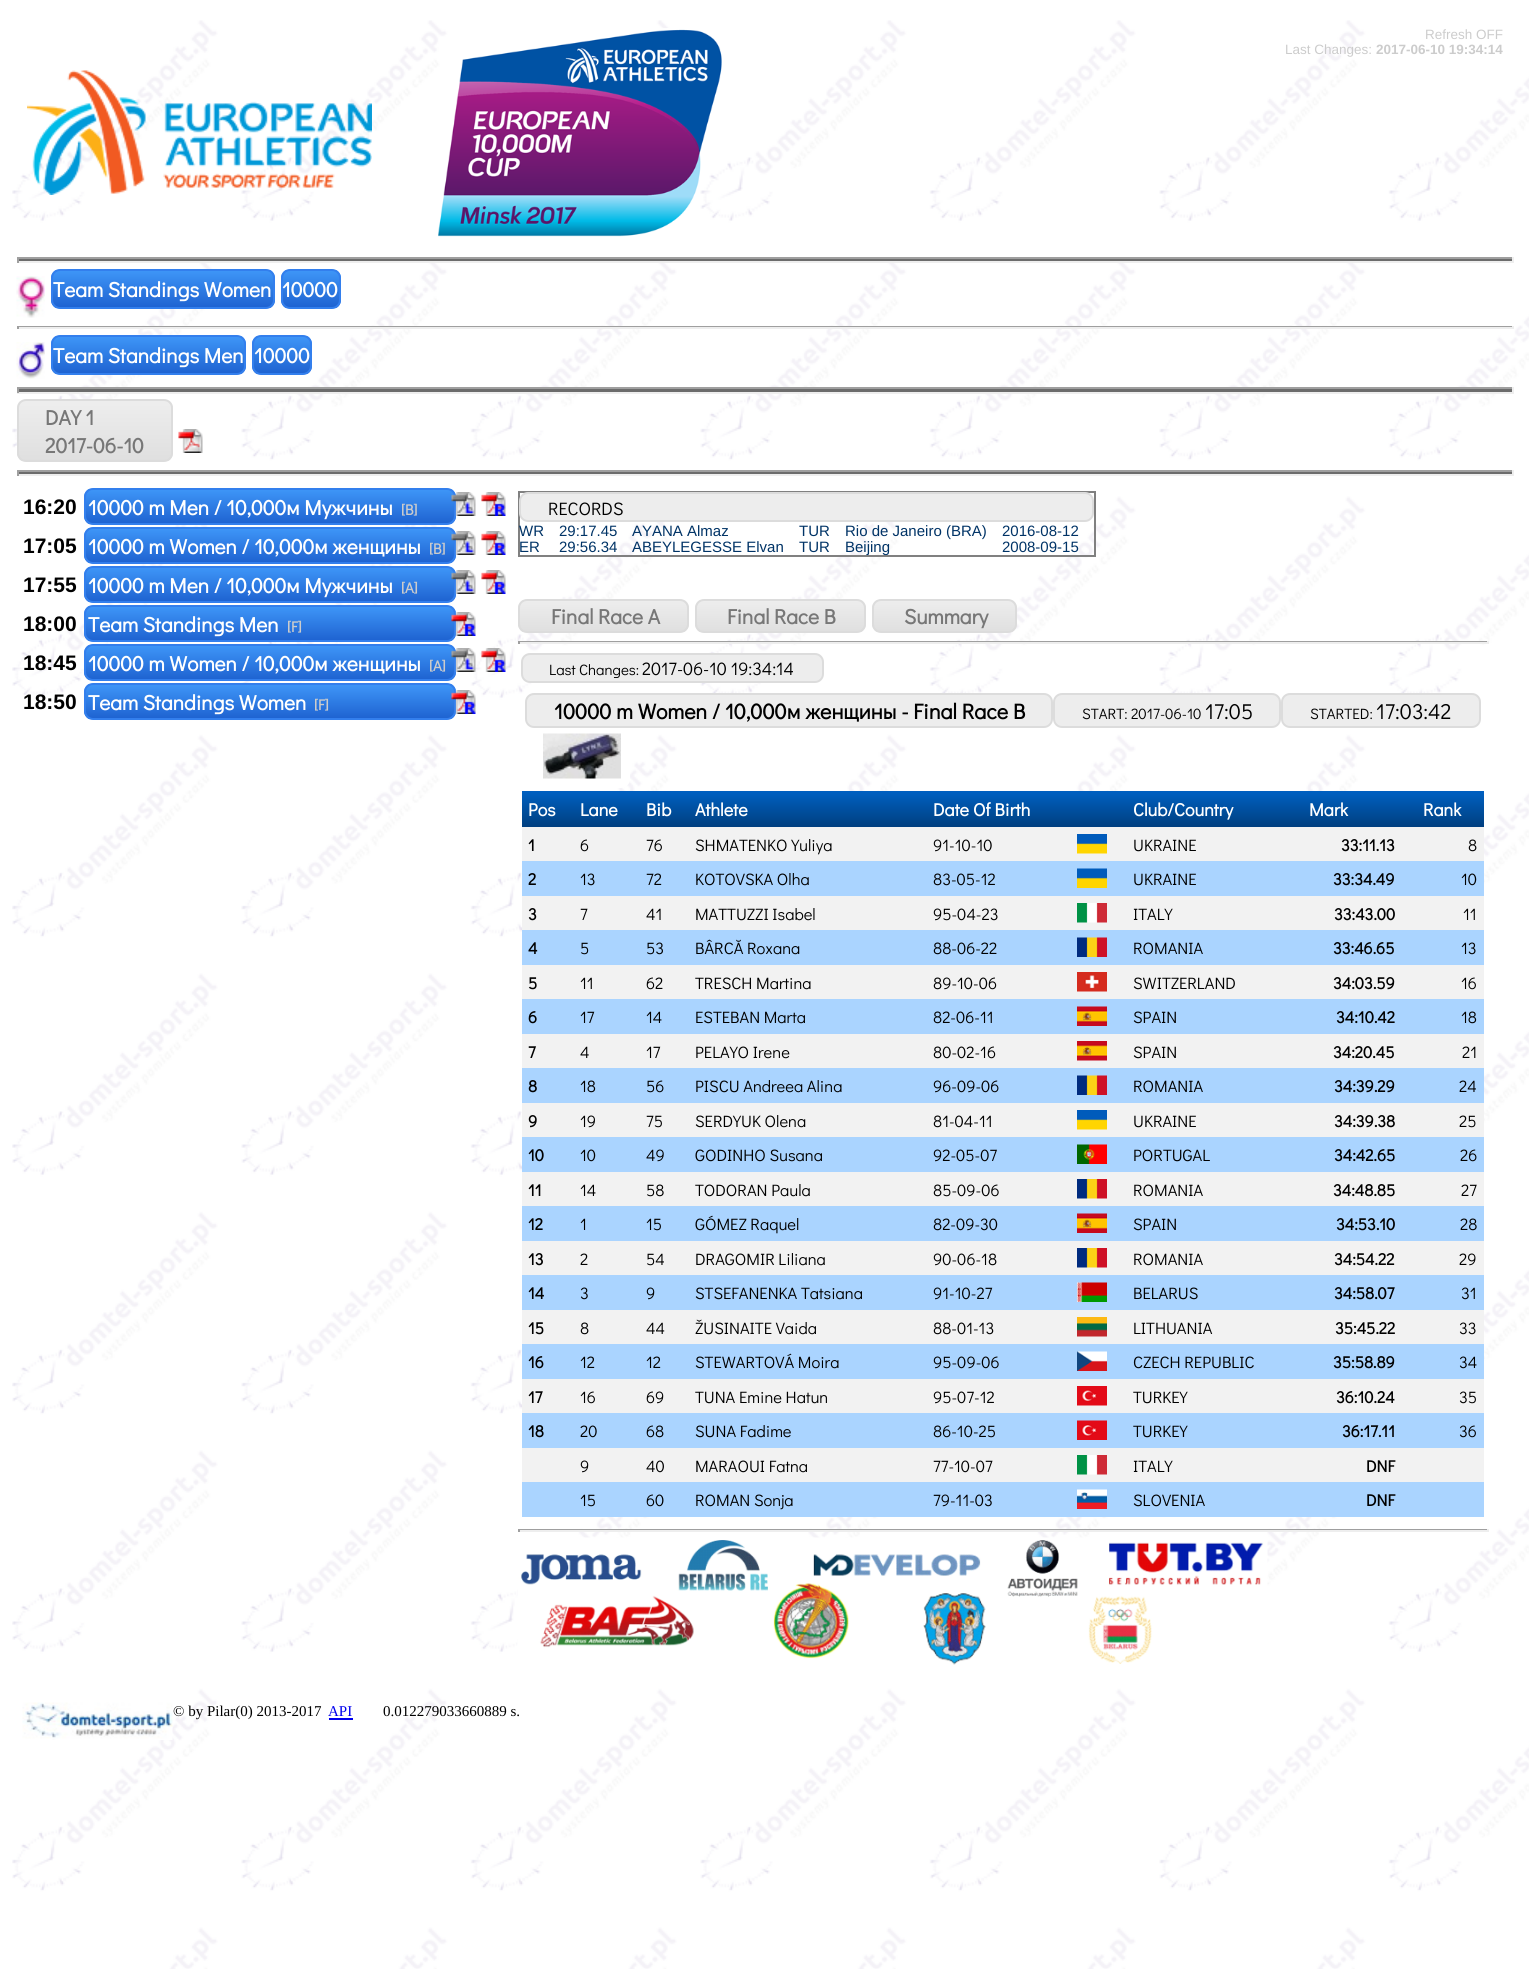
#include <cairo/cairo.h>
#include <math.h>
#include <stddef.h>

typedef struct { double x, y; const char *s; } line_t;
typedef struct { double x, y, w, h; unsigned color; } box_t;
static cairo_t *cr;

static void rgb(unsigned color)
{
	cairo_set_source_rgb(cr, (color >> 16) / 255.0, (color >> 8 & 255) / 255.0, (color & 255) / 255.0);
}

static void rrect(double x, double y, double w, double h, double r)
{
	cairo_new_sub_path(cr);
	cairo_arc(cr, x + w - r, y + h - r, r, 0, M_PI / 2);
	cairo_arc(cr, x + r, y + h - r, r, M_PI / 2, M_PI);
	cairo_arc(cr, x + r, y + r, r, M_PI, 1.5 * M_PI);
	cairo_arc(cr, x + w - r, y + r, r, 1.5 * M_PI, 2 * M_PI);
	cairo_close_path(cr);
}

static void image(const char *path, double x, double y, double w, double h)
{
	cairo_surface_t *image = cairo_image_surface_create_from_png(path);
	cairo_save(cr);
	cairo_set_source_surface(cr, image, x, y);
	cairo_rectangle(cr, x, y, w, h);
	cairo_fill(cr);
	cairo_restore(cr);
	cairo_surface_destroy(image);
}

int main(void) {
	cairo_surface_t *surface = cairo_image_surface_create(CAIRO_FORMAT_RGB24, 1529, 1969);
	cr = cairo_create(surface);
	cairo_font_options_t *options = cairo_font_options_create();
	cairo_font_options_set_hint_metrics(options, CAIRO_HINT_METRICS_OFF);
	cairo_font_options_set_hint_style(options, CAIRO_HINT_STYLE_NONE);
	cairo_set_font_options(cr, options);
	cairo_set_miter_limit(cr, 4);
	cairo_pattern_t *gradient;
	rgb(0xffffff);
	cairo_paint(cr);
	image("img/1.png", 12, 20, 1517, 1949);
	image("img/2.png", 438, 28, 284, 209);
	image("img/3.png", 27, 70, 345, 125);
	{
		static const box_t items[] = {
			{17, 259, 1497, 2, 0x6c6c6c},
			{17, 257, 1497, 2, 0x9f9f9f},
			{1512, 257, 2, 6, 0xeeeeee},
			{17, 261, 1497, 2, 0xeeeeee},
			{17, 257, 2, 6, 0x9f9f9f},
		};
		for (size_t i = 0; i < sizeof items / sizeof *items; i++) {
			rgb(items[i].color);
			cairo_rectangle(cr, items[i].x, items[i].y, items[i].w, items[i].h);
			cairo_fill(cr);
		}
	}
	image("img/4.png", 16, 276, 29, 42);
	cairo_save(cr);
	rrect(51, 269, 224, 40, 9);
	cairo_clip(cr);
	gradient = cairo_pattern_create_linear(53, 270, 53, 308);
	cairo_pattern_add_color_stop_rgba(gradient, 0.05, 0.239, 0.58, 0.965, 1);
	cairo_pattern_add_color_stop_rgba(gradient, 1, 0.118, 0.384, 0.816, 1);
	cairo_set_source(cr, gradient);
	cairo_pattern_destroy(gradient);
	cairo_rectangle(cr, 51, 270, 224, 38);
	cairo_fill(cr);
	cairo_restore(cr);
	rrect(52, 270, 222, 38, 8);
	rgb(0x337fed);
	cairo_stroke(cr);
	cairo_save(cr);
	rrect(281, 269, 60, 40, 9);
	cairo_clip(cr);
	gradient = cairo_pattern_create_linear(282, 270, 282, 308);
	cairo_pattern_add_color_stop_rgba(gradient, 0.05, 0.239, 0.58, 0.965, 1);
	cairo_pattern_add_color_stop_rgba(gradient, 1, 0.118, 0.384, 0.816, 1);
	cairo_set_source(cr, gradient);
	cairo_pattern_destroy(gradient);
	cairo_rectangle(cr, 281, 270, 60, 38);
	cairo_fill(cr);
	cairo_restore(cr);
	rrect(282, 270, 58, 38, 8);
	cairo_stroke(cr);
	{
		static const box_t items[] = {
			{17, 326, 1497, 1, 0x9f9f9f},
			{1512, 326, 2, 3, 0xeeeeee},
			{17, 327, 1497, 2, 0xeeeeee},
			{17, 326, 2, 3, 0x9f9f9f},
		};
		for (size_t i = 0; i < sizeof items / sizeof *items; i++) {
			rgb(items[i].color);
			cairo_rectangle(cr, items[i].x, items[i].y, items[i].w, items[i].h);
			cairo_fill(cr);
		}
	}
	image("img/5.png", 16, 342, 29, 37);
	cairo_save(cr);
	rrect(51, 335, 195, 40, 9);
	cairo_clip(cr);
	gradient = cairo_pattern_create_linear(53, 336, 53, 374);
	cairo_pattern_add_color_stop_rgba(gradient, 0.05, 0.239, 0.58, 0.965, 1);
	cairo_pattern_add_color_stop_rgba(gradient, 1, 0.118, 0.384, 0.816, 1);
	cairo_set_source(cr, gradient);
	cairo_pattern_destroy(gradient);
	cairo_rectangle(cr, 51, 336, 195, 38);
	cairo_fill(cr);
	cairo_restore(cr);
	rrect(52, 336, 193, 38, 8);
	rgb(0x337fed);
	cairo_stroke(cr);
	cairo_save(cr);
	rrect(252, 335, 60, 40, 9);
	cairo_clip(cr);
	gradient = cairo_pattern_create_linear(254, 336, 254, 374);
	cairo_pattern_add_color_stop_rgba(gradient, 0.05, 0.239, 0.58, 0.965, 1);
	cairo_pattern_add_color_stop_rgba(gradient, 1, 0.118, 0.384, 0.816, 1);
	cairo_set_source(cr, gradient);
	cairo_pattern_destroy(gradient);
	cairo_rectangle(cr, 252, 336, 60, 38);
	cairo_fill(cr);
	cairo_restore(cr);
	rrect(253, 336, 58, 38, 8);
	cairo_stroke(cr);
	{
		static const box_t items[] = {
			{17, 389, 1497, 3, 0x6c6c6c},
			{17, 387, 1497, 2, 0x9f9f9f},
			{1512, 387, 2, 6, 0xeeeeee},
			{17, 392, 1497, 2, 0xeeeeee},
			{17, 387, 2, 6, 0x9f9f9f},
		};
		for (size_t i = 0; i < sizeof items / sizeof *items; i++) {
			rgb(items[i].color);
			cairo_rectangle(cr, items[i].x, items[i].y, items[i].w, items[i].h);
			cairo_fill(cr);
		}
	}
	cairo_save(cr);
	rrect(17, 399, 156, 63, 9);
	cairo_clip(cr);
	gradient = cairo_pattern_create_linear(18, 401, 18, 461);
	cairo_pattern_add_color_stop_rgba(gradient, 0.05, 0.929, 0.929, 0.929, 1);
	cairo_pattern_add_color_stop_rgba(gradient, 1, 0.875, 0.875, 0.875, 1);
	cairo_set_source(cr, gradient);
	cairo_pattern_destroy(gradient);
	cairo_rectangle(cr, 17, 401, 156, 60);
	cairo_fill(cr);
	cairo_restore(cr);
	rrect(18, 400, 154, 61, 8);
	rgb(0xdcdcdc);
	cairo_stroke(cr);
	image("img/6.png", 178, 429, 25, 24);
	{
		static const box_t items[] = {
			{17, 472, 1497, 2, 0x6c6c6c},
			{17, 470, 1497, 2, 0x9f9f9f},
			{1512, 470, 2, 6, 0xeeeeee},
			{17, 474, 1497, 2, 0xeeeeee},
			{17, 470, 2, 6, 0x9f9f9f},
		};
		for (size_t i = 0; i < sizeof items / sizeof *items; i++) {
			rgb(items[i].color);
			cairo_rectangle(cr, items[i].x, items[i].y, items[i].w, items[i].h);
			cairo_fill(cr);
		}
	}
	cairo_save(cr);
	rrect(84, 488, 372, 37, 9);
	cairo_clip(cr);
	gradient = cairo_pattern_create_linear(86, 489, 86, 524);
	cairo_pattern_add_color_stop_rgba(gradient, 0.05, 0.239, 0.58, 0.965, 1);
	cairo_pattern_add_color_stop_rgba(gradient, 1, 0.118, 0.384, 0.816, 1);
	cairo_set_source(cr, gradient);
	cairo_pattern_destroy(gradient);
	cairo_rectangle(cr, 84, 489, 372, 35);
	cairo_fill(cr);
	cairo_restore(cr);
	rrect(85, 489, 370, 35, 8);
	rgb(0x337fed);
	cairo_stroke(cr);
	image("img/7.png", 451, 492, 25, 24);
	image("img/8.png", 481, 492, 25, 24);
	cairo_save(cr);
	rrect(84, 527, 372, 37, 9);
	cairo_clip(cr);
	gradient = cairo_pattern_create_linear(86, 528, 86, 563);
	cairo_pattern_add_color_stop_rgba(gradient, 0.05, 0.239, 0.58, 0.965, 1);
	cairo_pattern_add_color_stop_rgba(gradient, 1, 0.118, 0.384, 0.816, 1);
	cairo_set_source(cr, gradient);
	cairo_pattern_destroy(gradient);
	cairo_rectangle(cr, 84, 528, 372, 35);
	cairo_fill(cr);
	cairo_restore(cr);
	rrect(85, 528, 370, 35, 8);
	cairo_stroke(cr);
	image("img/7.png", 451, 531, 25, 24);
	image("img/8.png", 481, 531, 25, 24);
	cairo_save(cr);
	rrect(84, 566, 372, 37, 9);
	cairo_clip(cr);
	gradient = cairo_pattern_create_linear(86, 567, 86, 602);
	cairo_pattern_add_color_stop_rgba(gradient, 0.05, 0.239, 0.58, 0.965, 1);
	cairo_pattern_add_color_stop_rgba(gradient, 1, 0.118, 0.384, 0.816, 1);
	cairo_set_source(cr, gradient);
	cairo_pattern_destroy(gradient);
	cairo_rectangle(cr, 84, 567, 372, 35);
	cairo_fill(cr);
	cairo_restore(cr);
	rrect(85, 567, 370, 35, 8);
	cairo_stroke(cr);
	image("img/7.png", 451, 570, 25, 24);
	image("img/8.png", 481, 570, 25, 24);
	cairo_save(cr);
	rrect(84, 605, 372, 37, 9);
	cairo_clip(cr);
	gradient = cairo_pattern_create_linear(86, 606, 86, 641);
	cairo_pattern_add_color_stop_rgba(gradient, 0.05, 0.239, 0.58, 0.965, 1);
	cairo_pattern_add_color_stop_rgba(gradient, 1, 0.118, 0.384, 0.816, 1);
	cairo_set_source(cr, gradient);
	cairo_pattern_destroy(gradient);
	cairo_rectangle(cr, 84, 606, 372, 35);
	cairo_fill(cr);
	cairo_restore(cr);
	rrect(85, 606, 370, 35, 8);
	cairo_stroke(cr);
	image("img/9.png", 451, 612, 25, 24);
	cairo_save(cr);
	rrect(84, 644, 372, 37, 9);
	cairo_clip(cr);
	gradient = cairo_pattern_create_linear(86, 645, 86, 680);
	cairo_pattern_add_color_stop_rgba(gradient, 0.05, 0.239, 0.58, 0.965, 1);
	cairo_pattern_add_color_stop_rgba(gradient, 1, 0.118, 0.384, 0.816, 1);
	cairo_set_source(cr, gradient);
	cairo_pattern_destroy(gradient);
	cairo_rectangle(cr, 84, 645, 372, 35);
	cairo_fill(cr);
	cairo_restore(cr);
	rrect(85, 645, 370, 35, 8);
	cairo_stroke(cr);
	image("img/10.png", 451, 648, 25, 24);
	image("img/11.png", 481, 648, 25, 24);
	cairo_save(cr);
	rrect(84, 683, 372, 37, 9);
	cairo_clip(cr);
	gradient = cairo_pattern_create_linear(86, 684, 86, 719);
	cairo_pattern_add_color_stop_rgba(gradient, 0.05, 0.239, 0.58, 0.965, 1);
	cairo_pattern_add_color_stop_rgba(gradient, 1, 0.118, 0.384, 0.816, 1);
	cairo_set_source(cr, gradient);
	cairo_pattern_destroy(gradient);
	cairo_rectangle(cr, 84, 684, 372, 35);
	cairo_fill(cr);
	cairo_restore(cr);
	rrect(85, 684, 370, 35, 8);
	cairo_stroke(cr);
	image("img/9.png", 451, 690, 25, 24);
	{
		static const box_t items[] = {
			{518, 491, 577, 2, 0x808080},
			{1094, 491, 2, 66, 0x808080},
			{518, 555, 577, 2, 0x808080},
			{518, 491, 2, 66, 0x808080},
		};
		for (size_t i = 0; i < sizeof items / sizeof *items; i++) {
			rgb(items[i].color);
			cairo_rectangle(cr, items[i].x, items[i].y, items[i].w, items[i].h);
			cairo_fill(cr);
		}
	}
	rgb(0xededed);
	rrect(520, 493, 573, 28, 8);
	cairo_fill_preserve(cr);
	rgb(0xdcdcdc);
	cairo_stroke(cr);
	cairo_save(cr);
	rrect(518, 599, 171, 34, 9);
	cairo_clip(cr);
	gradient = cairo_pattern_create_linear(519, 600, 519, 632);
	cairo_pattern_add_color_stop_rgba(gradient, 0.05, 0.929, 0.929, 0.929, 1);
	cairo_pattern_add_color_stop_rgba(gradient, 1, 0.875, 0.875, 0.875, 1);
	cairo_set_source(cr, gradient);
	cairo_pattern_destroy(gradient);
	cairo_rectangle(cr, 518, 600, 171, 32);
	cairo_fill(cr);
	cairo_restore(cr);
	rrect(519, 600, 169, 32, 8);
	cairo_stroke(cr);
	cairo_save(cr);
	rrect(695, 599, 171, 34, 9);
	cairo_clip(cr);
	gradient = cairo_pattern_create_linear(696, 600, 696, 632);
	cairo_pattern_add_color_stop_rgba(gradient, 0.05, 0.929, 0.929, 0.929, 1);
	cairo_pattern_add_color_stop_rgba(gradient, 1, 0.875, 0.875, 0.875, 1);
	cairo_set_source(cr, gradient);
	cairo_pattern_destroy(gradient);
	cairo_rectangle(cr, 695, 600, 171, 32);
	cairo_fill(cr);
	cairo_restore(cr);
	rrect(696, 600, 169, 32, 8);
	cairo_stroke(cr);
	cairo_save(cr);
	rrect(872, 599, 145, 34, 9);
	cairo_clip(cr);
	gradient = cairo_pattern_create_linear(873, 600, 873, 632);
	cairo_pattern_add_color_stop_rgba(gradient, 0.05, 0.929, 0.929, 0.929, 1);
	cairo_pattern_add_color_stop_rgba(gradient, 1, 0.875, 0.875, 0.875, 1);
	cairo_set_source(cr, gradient);
	cairo_pattern_destroy(gradient);
	cairo_rectangle(cr, 872, 600, 145, 32);
	cairo_fill(cr);
	cairo_restore(cr);
	rrect(873, 600, 143, 32, 8);
	cairo_stroke(cr);
	{
		static const box_t items[] = {
			{518, 641, 970, 1, 0x9f9f9f},
			{1487, 641, 2, 3, 0xeeeeee},
			{518, 642, 970, 2, 0xeeeeee},
			{518, 641, 2, 3, 0x9f9f9f},
		};
		for (size_t i = 0; i < sizeof items / sizeof *items; i++) {
			rgb(items[i].color);
			cairo_rectangle(cr, items[i].x, items[i].y, items[i].w, items[i].h);
			cairo_fill(cr);
		}
	}
	rgb(0xededed);
	rrect(522, 654, 301, 28, 8);
	cairo_fill_preserve(cr);
	rgb(0xdcdcdc);
	cairo_stroke(cr);
	rgb(0xededed);
	rrect(526, 694, 526, 33, 8);
	cairo_fill_preserve(cr);
	rgb(0xdcdcdc);
	cairo_stroke(cr);
	rgb(0xededed);
	rrect(1054, 694, 226, 33, 8);
	cairo_fill_preserve(cr);
	rgb(0xdcdcdc);
	cairo_stroke(cr);
	rgb(0xededed);
	rrect(1282, 694, 198, 33, 8);
	cairo_fill_preserve(cr);
	rgb(0xdcdcdc);
	cairo_stroke(cr);
	rgb(0xffffff);
	rrect(525, 731, 105, 57, 9);
	cairo_fill(cr);
	image("img/12.png", 543, 733, 78, 46);
	gradient = cairo_pattern_create_linear(522, 791, 522, 827);
	cairo_pattern_add_color_stop_rgba(gradient, 0.05, 0, 0.373, 0.749, 1);
	cairo_pattern_add_color_stop_rgba(gradient, 1, 0, 0.247, 0.498, 1);
	cairo_set_source(cr, gradient);
	cairo_pattern_destroy(gradient);
	cairo_rectangle(cr, 522, 791, 53, 36);
	cairo_fill(cr);
	gradient = cairo_pattern_create_linear(575, 791, 575, 827);
	cairo_pattern_add_color_stop_rgba(gradient, 0.05, 0, 0.373, 0.749, 1);
	cairo_pattern_add_color_stop_rgba(gradient, 1, 0, 0.247, 0.498, 1);
	cairo_set_source(cr, gradient);
	cairo_pattern_destroy(gradient);
	cairo_rectangle(cr, 575, 791, 66, 36);
	cairo_fill(cr);
	gradient = cairo_pattern_create_linear(641, 791, 641, 827);
	cairo_pattern_add_color_stop_rgba(gradient, 0.05, 0, 0.373, 0.749, 1);
	cairo_pattern_add_color_stop_rgba(gradient, 1, 0, 0.247, 0.498, 1);
	cairo_set_source(cr, gradient);
	cairo_pattern_destroy(gradient);
	cairo_rectangle(cr, 641, 791, 48, 36);
	cairo_fill(cr);
	gradient = cairo_pattern_create_linear(689, 791, 689, 827);
	cairo_pattern_add_color_stop_rgba(gradient, 0.05, 0, 0.373, 0.749, 1);
	cairo_pattern_add_color_stop_rgba(gradient, 1, 0, 0.247, 0.498, 1);
	cairo_set_source(cr, gradient);
	cairo_pattern_destroy(gradient);
	cairo_rectangle(cr, 689, 791, 238, 36);
	cairo_fill(cr);
	gradient = cairo_pattern_create_linear(927, 791, 927, 827);
	cairo_pattern_add_color_stop_rgba(gradient, 0.05, 0, 0.373, 0.749, 1);
	cairo_pattern_add_color_stop_rgba(gradient, 1, 0, 0.247, 0.498, 1);
	cairo_set_source(cr, gradient);
	cairo_pattern_destroy(gradient);
	cairo_rectangle(cr, 927, 791, 144, 36);
	cairo_fill(cr);
	gradient = cairo_pattern_create_linear(1071, 791, 1071, 827);
	cairo_pattern_add_color_stop_rgba(gradient, 0.05, 0, 0.373, 0.749, 1);
	cairo_pattern_add_color_stop_rgba(gradient, 1, 0, 0.247, 0.498, 1);
	cairo_set_source(cr, gradient);
	cairo_pattern_destroy(gradient);
	cairo_rectangle(cr, 1071, 791, 56, 36);
	cairo_fill(cr);
	gradient = cairo_pattern_create_linear(1127, 791, 1127, 827);
	cairo_pattern_add_color_stop_rgba(gradient, 0.05, 0, 0.373, 0.749, 1);
	cairo_pattern_add_color_stop_rgba(gradient, 1, 0, 0.247, 0.498, 1);
	cairo_set_source(cr, gradient);
	cairo_pattern_destroy(gradient);
	cairo_rectangle(cr, 1127, 791, 177, 36);
	cairo_fill(cr);
	gradient = cairo_pattern_create_linear(1304, 791, 1304, 827);
	cairo_pattern_add_color_stop_rgba(gradient, 0.05, 0, 0.373, 0.749, 1);
	cairo_pattern_add_color_stop_rgba(gradient, 1, 0, 0.247, 0.498, 1);
	cairo_set_source(cr, gradient);
	cairo_pattern_destroy(gradient);
	cairo_rectangle(cr, 1304, 791, 97, 36);
	cairo_fill(cr);
	gradient = cairo_pattern_create_linear(1401, 791, 1401, 827);
	cairo_pattern_add_color_stop_rgba(gradient, 0.05, 0, 0.373, 0.749, 1);
	cairo_pattern_add_color_stop_rgba(gradient, 1, 0, 0.247, 0.498, 1);
	cairo_set_source(cr, gradient);
	cairo_pattern_destroy(gradient);
	cairo_rectangle(cr, 1401, 791, 15, 36);
	cairo_fill(cr);
	gradient = cairo_pattern_create_linear(1416, 791, 1416, 827);
	cairo_pattern_add_color_stop_rgba(gradient, 0.05, 0, 0.373, 0.749, 1);
	cairo_pattern_add_color_stop_rgba(gradient, 1, 0, 0.247, 0.498, 1);
	cairo_set_source(cr, gradient);
	cairo_pattern_destroy(gradient);
	cairo_rectangle(cr, 1416, 791, 68, 36);
	cairo_fill(cr);
	rgb(0xf2f2f2);
	cairo_rectangle(cr, 522, 827, 962, 34);
	cairo_fill(cr);
	image("img/13.png", 1077, 834, 30, 20);
	rgb(0xaad4ff);
	cairo_rectangle(cr, 522, 861, 962, 35);
	cairo_fill(cr);
	image("img/14.png", 1077, 868, 30, 20);
	rgb(0xf2f2f2);
	cairo_rectangle(cr, 522, 896, 962, 34);
	cairo_fill(cr);
	image("img/15.png", 1077, 903, 30, 20);
	rgb(0xaad4ff);
	cairo_rectangle(cr, 522, 930, 962, 35);
	cairo_fill(cr);
	image("img/16.png", 1077, 937, 30, 20);
	rgb(0xf2f2f2);
	cairo_rectangle(cr, 522, 965, 962, 34);
	cairo_fill(cr);
	image("img/17.png", 1077, 972, 30, 20);
	rgb(0xaad4ff);
	cairo_rectangle(cr, 522, 999, 962, 35);
	cairo_fill(cr);
	image("img/18.png", 1077, 1006, 30, 20);
	rgb(0xf2f2f2);
	cairo_rectangle(cr, 522, 1034, 962, 34);
	cairo_fill(cr);
	image("img/19.png", 1077, 1041, 30, 20);
	rgb(0xaad4ff);
	cairo_rectangle(cr, 522, 1068, 962, 35);
	cairo_fill(cr);
	image("img/16.png", 1077, 1075, 30, 20);
	rgb(0xf2f2f2);
	cairo_rectangle(cr, 522, 1103, 962, 34);
	cairo_fill(cr);
	image("img/13.png", 1077, 1110, 30, 20);
	rgb(0xaad4ff);
	cairo_rectangle(cr, 522, 1137, 962, 35);
	cairo_fill(cr);
	image("img/20.png", 1077, 1144, 30, 20);
	rgb(0xf2f2f2);
	cairo_rectangle(cr, 522, 1172, 962, 34);
	cairo_fill(cr);
	image("img/21.png", 1077, 1179, 30, 20);
	rgb(0xaad4ff);
	cairo_rectangle(cr, 522, 1206, 962, 35);
	cairo_fill(cr);
	image("img/18.png", 1077, 1213, 30, 20);
	rgb(0xf2f2f2);
	cairo_rectangle(cr, 522, 1241, 962, 34);
	cairo_fill(cr);
	image("img/21.png", 1077, 1248, 30, 20);
	rgb(0xaad4ff);
	cairo_rectangle(cr, 522, 1275, 962, 35);
	cairo_fill(cr);
	image("img/22.png", 1077, 1282, 30, 20);
	rgb(0xf2f2f2);
	cairo_rectangle(cr, 522, 1310, 962, 34);
	cairo_fill(cr);
	image("img/23.png", 1077, 1317, 30, 20);
	rgb(0xaad4ff);
	cairo_rectangle(cr, 522, 1344, 962, 35);
	cairo_fill(cr);
	image("img/24.png", 1077, 1351, 30, 20);
	rgb(0xf2f2f2);
	cairo_rectangle(cr, 522, 1379, 962, 34);
	cairo_fill(cr);
	image("img/25.png", 1077, 1386, 30, 20);
	rgb(0xaad4ff);
	cairo_rectangle(cr, 522, 1413, 962, 35);
	cairo_fill(cr);
	image("img/26.png", 1077, 1420, 30, 20);
	rgb(0xf2f2f2);
	cairo_rectangle(cr, 522, 1448, 962, 34);
	cairo_fill(cr);
	image("img/15.png", 1077, 1455, 30, 20);
	rgb(0xaad4ff);
	cairo_rectangle(cr, 522, 1482, 962, 35);
	cairo_fill(cr);
	image("img/27.png", 1077, 1489, 30, 20);
	{
		static const box_t items[] = {
			{518, 1529, 970, 1, 0x9f9f9f},
			{1487, 1529, 2, 3, 0xeeeeee},
			{518, 1530, 970, 2, 0xeeeeee},
			{518, 1529, 2, 3, 0x9f9f9f},
		};
		for (size_t i = 0; i < sizeof items / sizeof *items; i++) {
			rgb(items[i].color);
			cairo_rectangle(cr, items[i].x, items[i].y, items[i].w, items[i].h);
			cairo_fill(cr);
		}
	}
	image("img/28.png", 517, 1537, 751, 128);
	image("img/29.png", 22, 1702, 151, 38);
	rgb(0x0000ee);
	cairo_rectangle(cr, 329, 1718, 24, 2);
	cairo_fill(cr);
	cairo_select_font_face(cr, "Liberation Sans", CAIRO_FONT_SLANT_NORMAL, CAIRO_FONT_WEIGHT_NORMAL);
	cairo_set_font_size(cr, 13.5);
	rgb(0xcccccc);
	cairo_move_to(cr, 1425, 39);
	cairo_show_text(cr, "Refresh OFF");
	cairo_move_to(cr, 1285, 54);
	cairo_show_text(cr, "Last Changes:");
	cairo_select_font_face(cr, "Liberation Sans", CAIRO_FONT_SLANT_NORMAL, CAIRO_FONT_WEIGHT_BOLD);
	cairo_move_to(cr, 1376, 54);
	cairo_show_text(cr, "2017-06-10 19:34:14");
	cairo_select_font_face(cr, "Didact Gothic", CAIRO_FONT_SLANT_NORMAL, CAIRO_FONT_WEIGHT_BOLD);
	cairo_set_font_size(cr, 21);
	rgb(0xffffff);
	{
		static const line_t items[] = {
			{53, 297, "Team Standings Women"},
			{282, 297, "10000"},
			{53, 363, "Team Standings Men"},
			{254, 363, "10000"},
		};
		for (size_t i = 0; i < sizeof items / sizeof *items; i++) {
			cairo_move_to(cr, items[i].x, items[i].y);
			cairo_show_text(cr, items[i].s);
		}
	}
	rgb(0x777777);
	cairo_move_to(cr, 45, 425);
	cairo_show_text(cr, "DAY 1");
	cairo_move_to(cr, 45, 453);
	cairo_show_text(cr, "2017-06-10");
	cairo_select_font_face(cr, "Liberation Sans", CAIRO_FONT_SLANT_NORMAL, CAIRO_FONT_WEIGHT_BOLD);
	rgb(0x000000);
	cairo_move_to(cr, 23, 514);
	cairo_show_text(cr, "16:20");
	cairo_select_font_face(cr, "Didact Gothic", CAIRO_FONT_SLANT_NORMAL, CAIRO_FONT_WEIGHT_BOLD);
	rgb(0xffffff);
	cairo_move_to(cr, 88, 515);
	cairo_show_text(cr, "10000 m Men / 10,000м Мужчины");
	cairo_set_font_size(cr, 15);
	rgb(0xcccccc);
	cairo_move_to(cr, 401, 515);
	cairo_show_text(cr, "[B]");
	cairo_select_font_face(cr, "Liberation Sans", CAIRO_FONT_SLANT_NORMAL, CAIRO_FONT_WEIGHT_BOLD);
	cairo_set_font_size(cr, 21);
	rgb(0x000000);
	cairo_move_to(cr, 23, 553);
	cairo_show_text(cr, "17:05");
	cairo_select_font_face(cr, "Didact Gothic", CAIRO_FONT_SLANT_NORMAL, CAIRO_FONT_WEIGHT_BOLD);
	rgb(0xffffff);
	cairo_move_to(cr, 88, 554);
	cairo_show_text(cr, "10000 m Women / 10,000м женщины");
	cairo_set_font_size(cr, 15);
	rgb(0xcccccc);
	cairo_move_to(cr, 429, 554);
	cairo_show_text(cr, "[B]");
	cairo_select_font_face(cr, "Liberation Sans", CAIRO_FONT_SLANT_NORMAL, CAIRO_FONT_WEIGHT_BOLD);
	cairo_set_font_size(cr, 21);
	rgb(0x000000);
	cairo_move_to(cr, 23, 592);
	cairo_show_text(cr, "17:55");
	cairo_select_font_face(cr, "Didact Gothic", CAIRO_FONT_SLANT_NORMAL, CAIRO_FONT_WEIGHT_BOLD);
	rgb(0xffffff);
	cairo_move_to(cr, 88, 593);
	cairo_show_text(cr, "10000 m Men / 10,000м Мужчины");
	cairo_set_font_size(cr, 15);
	rgb(0xcccccc);
	cairo_move_to(cr, 401, 593);
	cairo_show_text(cr, "[A]");
	cairo_select_font_face(cr, "Liberation Sans", CAIRO_FONT_SLANT_NORMAL, CAIRO_FONT_WEIGHT_BOLD);
	cairo_set_font_size(cr, 21);
	rgb(0x000000);
	cairo_move_to(cr, 23, 631);
	cairo_show_text(cr, "18:00");
	cairo_select_font_face(cr, "Didact Gothic", CAIRO_FONT_SLANT_NORMAL, CAIRO_FONT_WEIGHT_BOLD);
	rgb(0xffffff);
	cairo_move_to(cr, 88, 632);
	cairo_show_text(cr, "Team Standings Men");
	cairo_set_font_size(cr, 15);
	rgb(0xcccccc);
	cairo_move_to(cr, 287, 632);
	cairo_show_text(cr, "[F]");
	cairo_select_font_face(cr, "Liberation Sans", CAIRO_FONT_SLANT_NORMAL, CAIRO_FONT_WEIGHT_BOLD);
	cairo_set_font_size(cr, 21);
	rgb(0x000000);
	cairo_move_to(cr, 23, 670);
	cairo_show_text(cr, "18:45");
	cairo_select_font_face(cr, "Didact Gothic", CAIRO_FONT_SLANT_NORMAL, CAIRO_FONT_WEIGHT_BOLD);
	rgb(0xffffff);
	cairo_move_to(cr, 88, 671);
	cairo_show_text(cr, "10000 m Women / 10,000м женщины");
	cairo_set_font_size(cr, 15);
	rgb(0xcccccc);
	cairo_move_to(cr, 429, 671);
	cairo_show_text(cr, "[A]");
	cairo_select_font_face(cr, "Liberation Sans", CAIRO_FONT_SLANT_NORMAL, CAIRO_FONT_WEIGHT_BOLD);
	cairo_set_font_size(cr, 21);
	rgb(0x000000);
	cairo_move_to(cr, 23, 709);
	cairo_show_text(cr, "18:50");
	cairo_select_font_face(cr, "Didact Gothic", CAIRO_FONT_SLANT_NORMAL, CAIRO_FONT_WEIGHT_BOLD);
	rgb(0xffffff);
	cairo_move_to(cr, 88, 710);
	cairo_show_text(cr, "Team Standings Women");
	cairo_set_font_size(cr, 15);
	rgb(0xcccccc);
	cairo_move_to(cr, 314, 710);
	cairo_show_text(cr, "[F]");
	cairo_select_font_face(cr, "Didact Gothic", CAIRO_FONT_SLANT_NORMAL, CAIRO_FONT_WEIGHT_NORMAL);
	cairo_set_font_size(cr, 18);
	rgb(0x000000);
	cairo_move_to(cr, 548, 515);
	cairo_show_text(cr, "RECORDS");
	cairo_select_font_face(cr, "Liberation Sans", CAIRO_FONT_SLANT_NORMAL, CAIRO_FONT_WEIGHT_NORMAL);
	cairo_set_font_size(cr, 15);
	rgb(0x003366);
	{
		static const line_t items[] = {
			{519, 536, "WR"},
			{559, 536, "29:17.45"},
			{632, 536, "AYANA Almaz"},
			{799, 536, "TUR"},
			{845, 536, "Rio de Janeiro (BRA)"},
			{1002, 536, "2016-08-12"},
			{519, 552, "ER"},
			{559, 552, "29:56.34"},
			{632, 552, "ABEYLEGESSE Elvan"},
			{799, 552, "TUR"},
			{845, 552, "Beijing"},
			{1002, 552, "2008-09-15"},
		};
		for (size_t i = 0; i < sizeof items / sizeof *items; i++) {
			cairo_move_to(cr, items[i].x, items[i].y);
			cairo_show_text(cr, items[i].s);
		}
	}
	cairo_select_font_face(cr, "Didact Gothic", CAIRO_FONT_SLANT_NORMAL, CAIRO_FONT_WEIGHT_BOLD);
	cairo_set_font_size(cr, 21);
	rgb(0x777777);
	{
		static const line_t items[] = {
			{551, 624, "Final Race A"},
			{727, 624, "Final Race B"},
			{904, 624, "Summary"},
		};
		for (size_t i = 0; i < sizeof items / sizeof *items; i++) {
			cairo_move_to(cr, items[i].x, items[i].y);
			cairo_show_text(cr, items[i].s);
		}
	}
	cairo_select_font_face(cr, "Didact Gothic", CAIRO_FONT_SLANT_NORMAL, CAIRO_FONT_WEIGHT_NORMAL);
	cairo_set_font_size(cr, 15);
	rgb(0x000000);
	cairo_move_to(cr, 549, 675);
	cairo_show_text(cr, "Last Changes:");
	cairo_set_font_size(cr, 18);
	cairo_move_to(cr, 642, 675);
	cairo_show_text(cr, "2017-06-10 19:34:14");
	cairo_select_font_face(cr, "Didact Gothic", CAIRO_FONT_SLANT_NORMAL, CAIRO_FONT_WEIGHT_BOLD);
	cairo_set_font_size(cr, 21.6);
	cairo_move_to(cr, 554, 719);
	cairo_show_text(cr, "10000 m Women / 10,000м женщины - Final Race B");
	cairo_select_font_face(cr, "Didact Gothic", CAIRO_FONT_SLANT_NORMAL, CAIRO_FONT_WEIGHT_NORMAL);
	cairo_set_font_size(cr, 15);
	cairo_move_to(cr, 1082, 719);
	cairo_show_text(cr, "START: 2017-06-10");
	cairo_set_font_size(cr, 21.6);
	cairo_move_to(cr, 1205, 719);
	cairo_show_text(cr, "17:05");
	cairo_set_font_size(cr, 15);
	cairo_move_to(cr, 1310, 719);
	cairo_show_text(cr, "STARTED:");
	cairo_set_font_size(cr, 21.6);
	cairo_move_to(cr, 1376, 719);
	cairo_show_text(cr, "17:03:42");
	cairo_select_font_face(cr, "Didact Gothic", CAIRO_FONT_SLANT_NORMAL, CAIRO_FONT_WEIGHT_BOLD);
	cairo_set_font_size(cr, 18);
	rgb(0xffffff);
	{
		static const line_t items[] = {
			{528, 816, "Pos"},
			{580, 816, "Lane"},
			{646, 816, "Bib"},
			{695, 816, "Athlete"},
			{933, 816, "Date Of Birth"},
			{1133, 816, "Club/Country"},
			{1309, 816, "Mark"},
			{1423, 816, "Rank"},
		};
		for (size_t i = 0; i < sizeof items / sizeof *items; i++) {
			cairo_move_to(cr, items[i].x, items[i].y);
			cairo_show_text(cr, items[i].s);
		}
	}
	cairo_set_font_size(cr, 16.5);
	rgb(0x000000);
	cairo_move_to(cr, 528, 851);
	cairo_show_text(cr, "1");
	cairo_select_font_face(cr, "Didact Gothic", CAIRO_FONT_SLANT_NORMAL, CAIRO_FONT_WEIGHT_NORMAL);
	{
		static const line_t items[] = {
			{580, 851, "6"},
			{646, 851, "76"},
			{695, 851, "SHMATENKO Yuliya"},
			{933, 851, "91-10-10"},
			{1133, 851, "UKRAINE"},
		};
		for (size_t i = 0; i < sizeof items / sizeof *items; i++) {
			cairo_move_to(cr, items[i].x, items[i].y);
			cairo_show_text(cr, items[i].s);
		}
	}
	cairo_select_font_face(cr, "Didact Gothic", CAIRO_FONT_SLANT_NORMAL, CAIRO_FONT_WEIGHT_BOLD);
	cairo_move_to(cr, 1341, 851);
	cairo_show_text(cr, "33:11.13");
	cairo_select_font_face(cr, "Didact Gothic", CAIRO_FONT_SLANT_NORMAL, CAIRO_FONT_WEIGHT_NORMAL);
	cairo_move_to(cr, 1468, 851);
	cairo_show_text(cr, "8");
	cairo_select_font_face(cr, "Didact Gothic", CAIRO_FONT_SLANT_NORMAL, CAIRO_FONT_WEIGHT_BOLD);
	cairo_move_to(cr, 528, 885);
	cairo_show_text(cr, "2");
	cairo_select_font_face(cr, "Didact Gothic", CAIRO_FONT_SLANT_NORMAL, CAIRO_FONT_WEIGHT_NORMAL);
	{
		static const line_t items[] = {
			{580, 885, "13"},
			{646, 885, "72"},
			{695, 885, "KOTOVSKA Olha"},
			{933, 885, "83-05-12"},
			{1133, 885, "UKRAINE"},
		};
		for (size_t i = 0; i < sizeof items / sizeof *items; i++) {
			cairo_move_to(cr, items[i].x, items[i].y);
			cairo_show_text(cr, items[i].s);
		}
	}
	cairo_select_font_face(cr, "Didact Gothic", CAIRO_FONT_SLANT_NORMAL, CAIRO_FONT_WEIGHT_BOLD);
	cairo_move_to(cr, 1333, 885);
	cairo_show_text(cr, "33:34.49");
	cairo_select_font_face(cr, "Didact Gothic", CAIRO_FONT_SLANT_NORMAL, CAIRO_FONT_WEIGHT_NORMAL);
	cairo_move_to(cr, 1461, 885);
	cairo_show_text(cr, "10");
	cairo_select_font_face(cr, "Didact Gothic", CAIRO_FONT_SLANT_NORMAL, CAIRO_FONT_WEIGHT_BOLD);
	cairo_move_to(cr, 528, 920);
	cairo_show_text(cr, "3");
	cairo_select_font_face(cr, "Didact Gothic", CAIRO_FONT_SLANT_NORMAL, CAIRO_FONT_WEIGHT_NORMAL);
	{
		static const line_t items[] = {
			{580, 920, "7"},
			{646, 920, "41"},
			{695, 920, "MATTUZZI Isabel"},
			{933, 920, "95-04-23"},
			{1133, 920, "ITALY"},
		};
		for (size_t i = 0; i < sizeof items / sizeof *items; i++) {
			cairo_move_to(cr, items[i].x, items[i].y);
			cairo_show_text(cr, items[i].s);
		}
	}
	cairo_select_font_face(cr, "Didact Gothic", CAIRO_FONT_SLANT_NORMAL, CAIRO_FONT_WEIGHT_BOLD);
	cairo_move_to(cr, 1334, 920);
	cairo_show_text(cr, "33:43.00");
	cairo_select_font_face(cr, "Didact Gothic", CAIRO_FONT_SLANT_NORMAL, CAIRO_FONT_WEIGHT_NORMAL);
	cairo_move_to(cr, 1463, 920);
	cairo_show_text(cr, "11");
	cairo_select_font_face(cr, "Didact Gothic", CAIRO_FONT_SLANT_NORMAL, CAIRO_FONT_WEIGHT_BOLD);
	cairo_move_to(cr, 528, 954);
	cairo_show_text(cr, "4");
	cairo_select_font_face(cr, "Didact Gothic", CAIRO_FONT_SLANT_NORMAL, CAIRO_FONT_WEIGHT_NORMAL);
	{
		static const line_t items[] = {
			{580, 954, "5"},
			{646, 954, "53"},
			{695, 954, "BÂRCĂ Roxana"},
			{933, 954, "88-06-22"},
			{1133, 954, "ROMANIA"},
		};
		for (size_t i = 0; i < sizeof items / sizeof *items; i++) {
			cairo_move_to(cr, items[i].x, items[i].y);
			cairo_show_text(cr, items[i].s);
		}
	}
	cairo_select_font_face(cr, "Didact Gothic", CAIRO_FONT_SLANT_NORMAL, CAIRO_FONT_WEIGHT_BOLD);
	cairo_move_to(cr, 1333, 954);
	cairo_show_text(cr, "33:46.65");
	cairo_select_font_face(cr, "Didact Gothic", CAIRO_FONT_SLANT_NORMAL, CAIRO_FONT_WEIGHT_NORMAL);
	cairo_move_to(cr, 1461, 954);
	cairo_show_text(cr, "13");
	cairo_select_font_face(cr, "Didact Gothic", CAIRO_FONT_SLANT_NORMAL, CAIRO_FONT_WEIGHT_BOLD);
	cairo_move_to(cr, 528, 989);
	cairo_show_text(cr, "5");
	cairo_select_font_face(cr, "Didact Gothic", CAIRO_FONT_SLANT_NORMAL, CAIRO_FONT_WEIGHT_NORMAL);
	{
		static const line_t items[] = {
			{580, 989, "11"},
			{646, 989, "62"},
			{695, 989, "TRESCH Martina"},
			{933, 989, "89-10-06"},
			{1133, 989, "SWITZERLAND"},
		};
		for (size_t i = 0; i < sizeof items / sizeof *items; i++) {
			cairo_move_to(cr, items[i].x, items[i].y);
			cairo_show_text(cr, items[i].s);
		}
	}
	cairo_select_font_face(cr, "Didact Gothic", CAIRO_FONT_SLANT_NORMAL, CAIRO_FONT_WEIGHT_BOLD);
	cairo_move_to(cr, 1333, 989);
	cairo_show_text(cr, "34:03.59");
	cairo_select_font_face(cr, "Didact Gothic", CAIRO_FONT_SLANT_NORMAL, CAIRO_FONT_WEIGHT_NORMAL);
	cairo_move_to(cr, 1461, 989);
	cairo_show_text(cr, "16");
	cairo_select_font_face(cr, "Didact Gothic", CAIRO_FONT_SLANT_NORMAL, CAIRO_FONT_WEIGHT_BOLD);
	cairo_move_to(cr, 528, 1023);
	cairo_show_text(cr, "6");
	cairo_select_font_face(cr, "Didact Gothic", CAIRO_FONT_SLANT_NORMAL, CAIRO_FONT_WEIGHT_NORMAL);
	{
		static const line_t items[] = {
			{580, 1023, "17"},
			{646, 1023, "14"},
			{695, 1023, "ESTEBAN Marta"},
			{933, 1023, "82-06-11"},
			{1133, 1023, "SPAIN"},
		};
		for (size_t i = 0; i < sizeof items / sizeof *items; i++) {
			cairo_move_to(cr, items[i].x, items[i].y);
			cairo_show_text(cr, items[i].s);
		}
	}
	cairo_select_font_face(cr, "Didact Gothic", CAIRO_FONT_SLANT_NORMAL, CAIRO_FONT_WEIGHT_BOLD);
	cairo_move_to(cr, 1336, 1023);
	cairo_show_text(cr, "34:10.42");
	cairo_select_font_face(cr, "Didact Gothic", CAIRO_FONT_SLANT_NORMAL, CAIRO_FONT_WEIGHT_NORMAL);
	cairo_move_to(cr, 1461, 1023);
	cairo_show_text(cr, "18");
	cairo_select_font_face(cr, "Didact Gothic", CAIRO_FONT_SLANT_NORMAL, CAIRO_FONT_WEIGHT_BOLD);
	cairo_move_to(cr, 528, 1058);
	cairo_show_text(cr, "7");
	cairo_select_font_face(cr, "Didact Gothic", CAIRO_FONT_SLANT_NORMAL, CAIRO_FONT_WEIGHT_NORMAL);
	{
		static const line_t items[] = {
			{580, 1058, "4"},
			{646, 1058, "17"},
			{695, 1058, "PELAYO Irene"},
			{933, 1058, "80-02-16"},
			{1133, 1058, "SPAIN"},
		};
		for (size_t i = 0; i < sizeof items / sizeof *items; i++) {
			cairo_move_to(cr, items[i].x, items[i].y);
			cairo_show_text(cr, items[i].s);
		}
	}
	cairo_select_font_face(cr, "Didact Gothic", CAIRO_FONT_SLANT_NORMAL, CAIRO_FONT_WEIGHT_BOLD);
	cairo_move_to(cr, 1333, 1058);
	cairo_show_text(cr, "34:20.45");
	cairo_select_font_face(cr, "Didact Gothic", CAIRO_FONT_SLANT_NORMAL, CAIRO_FONT_WEIGHT_NORMAL);
	cairo_move_to(cr, 1462, 1058);
	cairo_show_text(cr, "21");
	cairo_select_font_face(cr, "Didact Gothic", CAIRO_FONT_SLANT_NORMAL, CAIRO_FONT_WEIGHT_BOLD);
	cairo_move_to(cr, 528, 1092);
	cairo_show_text(cr, "8");
	cairo_select_font_face(cr, "Didact Gothic", CAIRO_FONT_SLANT_NORMAL, CAIRO_FONT_WEIGHT_NORMAL);
	{
		static const line_t items[] = {
			{580, 1092, "18"},
			{646, 1092, "56"},
			{695, 1092, "PISCU Andreea Alina"},
			{933, 1092, "96-09-06"},
			{1133, 1092, "ROMANIA"},
		};
		for (size_t i = 0; i < sizeof items / sizeof *items; i++) {
			cairo_move_to(cr, items[i].x, items[i].y);
			cairo_show_text(cr, items[i].s);
		}
	}
	cairo_select_font_face(cr, "Didact Gothic", CAIRO_FONT_SLANT_NORMAL, CAIRO_FONT_WEIGHT_BOLD);
	cairo_move_to(cr, 1334, 1092);
	cairo_show_text(cr, "34:39.29");
	cairo_select_font_face(cr, "Didact Gothic", CAIRO_FONT_SLANT_NORMAL, CAIRO_FONT_WEIGHT_NORMAL);
	cairo_move_to(cr, 1459, 1092);
	cairo_show_text(cr, "24");
	cairo_select_font_face(cr, "Didact Gothic", CAIRO_FONT_SLANT_NORMAL, CAIRO_FONT_WEIGHT_BOLD);
	cairo_move_to(cr, 528, 1127);
	cairo_show_text(cr, "9");
	cairo_select_font_face(cr, "Didact Gothic", CAIRO_FONT_SLANT_NORMAL, CAIRO_FONT_WEIGHT_NORMAL);
	{
		static const line_t items[] = {
			{580, 1127, "19"},
			{646, 1127, "75"},
			{695, 1127, "SERDYUK Olena"},
			{933, 1127, "81-04-11"},
			{1133, 1127, "UKRAINE"},
		};
		for (size_t i = 0; i < sizeof items / sizeof *items; i++) {
			cairo_move_to(cr, items[i].x, items[i].y);
			cairo_show_text(cr, items[i].s);
		}
	}
	cairo_select_font_face(cr, "Didact Gothic", CAIRO_FONT_SLANT_NORMAL, CAIRO_FONT_WEIGHT_BOLD);
	cairo_move_to(cr, 1334, 1127);
	cairo_show_text(cr, "34:39.38");
	cairo_select_font_face(cr, "Didact Gothic", CAIRO_FONT_SLANT_NORMAL, CAIRO_FONT_WEIGHT_NORMAL);
	cairo_move_to(cr, 1459, 1127);
	cairo_show_text(cr, "25");
	cairo_select_font_face(cr, "Didact Gothic", CAIRO_FONT_SLANT_NORMAL, CAIRO_FONT_WEIGHT_BOLD);
	cairo_move_to(cr, 528, 1161);
	cairo_show_text(cr, "10");
	cairo_select_font_face(cr, "Didact Gothic", CAIRO_FONT_SLANT_NORMAL, CAIRO_FONT_WEIGHT_NORMAL);
	{
		static const line_t items[] = {
			{580, 1161, "10"},
			{646, 1161, "49"},
			{695, 1161, "GODINHO Susana"},
			{933, 1161, "92-05-07"},
			{1133, 1161, "PORTUGAL"},
		};
		for (size_t i = 0; i < sizeof items / sizeof *items; i++) {
			cairo_move_to(cr, items[i].x, items[i].y);
			cairo_show_text(cr, items[i].s);
		}
	}
	cairo_select_font_face(cr, "Didact Gothic", CAIRO_FONT_SLANT_NORMAL, CAIRO_FONT_WEIGHT_BOLD);
	cairo_move_to(cr, 1334, 1161);
	cairo_show_text(cr, "34:42.65");
	cairo_select_font_face(cr, "Didact Gothic", CAIRO_FONT_SLANT_NORMAL, CAIRO_FONT_WEIGHT_NORMAL);
	cairo_move_to(cr, 1460, 1161);
	cairo_show_text(cr, "26");
	cairo_select_font_face(cr, "Didact Gothic", CAIRO_FONT_SLANT_NORMAL, CAIRO_FONT_WEIGHT_BOLD);
	cairo_move_to(cr, 528, 1196);
	cairo_show_text(cr, "11");
	cairo_select_font_face(cr, "Didact Gothic", CAIRO_FONT_SLANT_NORMAL, CAIRO_FONT_WEIGHT_NORMAL);
	{
		static const line_t items[] = {
			{580, 1196, "14"},
			{646, 1196, "58"},
			{695, 1196, "TODORAN Paula"},
			{933, 1196, "85-09-06"},
			{1133, 1196, "ROMANIA"},
		};
		for (size_t i = 0; i < sizeof items / sizeof *items; i++) {
			cairo_move_to(cr, items[i].x, items[i].y);
			cairo_show_text(cr, items[i].s);
		}
	}
	cairo_select_font_face(cr, "Didact Gothic", CAIRO_FONT_SLANT_NORMAL, CAIRO_FONT_WEIGHT_BOLD);
	cairo_move_to(cr, 1333, 1196);
	cairo_show_text(cr, "34:48.85");
	cairo_select_font_face(cr, "Didact Gothic", CAIRO_FONT_SLANT_NORMAL, CAIRO_FONT_WEIGHT_NORMAL);
	cairo_move_to(cr, 1461, 1196);
	cairo_show_text(cr, "27");
	cairo_select_font_face(cr, "Didact Gothic", CAIRO_FONT_SLANT_NORMAL, CAIRO_FONT_WEIGHT_BOLD);
	cairo_move_to(cr, 528, 1230);
	cairo_show_text(cr, "12");
	cairo_select_font_face(cr, "Didact Gothic", CAIRO_FONT_SLANT_NORMAL, CAIRO_FONT_WEIGHT_NORMAL);
	{
		static const line_t items[] = {
			{580, 1230, "1"},
			{646, 1230, "15"},
			{695, 1230, "GÓMEZ Raquel"},
			{933, 1230, "82-09-30"},
			{1133, 1230, "SPAIN"},
		};
		for (size_t i = 0; i < sizeof items / sizeof *items; i++) {
			cairo_move_to(cr, items[i].x, items[i].y);
			cairo_show_text(cr, items[i].s);
		}
	}
	cairo_select_font_face(cr, "Didact Gothic", CAIRO_FONT_SLANT_NORMAL, CAIRO_FONT_WEIGHT_BOLD);
	cairo_move_to(cr, 1336, 1230);
	cairo_show_text(cr, "34:53.10");
	cairo_select_font_face(cr, "Didact Gothic", CAIRO_FONT_SLANT_NORMAL, CAIRO_FONT_WEIGHT_NORMAL);
	cairo_move_to(cr, 1460, 1230);
	cairo_show_text(cr, "28");
	cairo_select_font_face(cr, "Didact Gothic", CAIRO_FONT_SLANT_NORMAL, CAIRO_FONT_WEIGHT_BOLD);
	cairo_move_to(cr, 528, 1265);
	cairo_show_text(cr, "13");
	cairo_select_font_face(cr, "Didact Gothic", CAIRO_FONT_SLANT_NORMAL, CAIRO_FONT_WEIGHT_NORMAL);
	{
		static const line_t items[] = {
			{580, 1265, "2"},
			{646, 1265, "54"},
			{695, 1265, "DRAGOMIR Liliana"},
			{933, 1265, "90-06-18"},
			{1133, 1265, "ROMANIA"},
		};
		for (size_t i = 0; i < sizeof items / sizeof *items; i++) {
			cairo_move_to(cr, items[i].x, items[i].y);
			cairo_show_text(cr, items[i].s);
		}
	}
	cairo_select_font_face(cr, "Didact Gothic", CAIRO_FONT_SLANT_NORMAL, CAIRO_FONT_WEIGHT_BOLD);
	cairo_move_to(cr, 1334, 1265);
	cairo_show_text(cr, "34:54.22");
	cairo_select_font_face(cr, "Didact Gothic", CAIRO_FONT_SLANT_NORMAL, CAIRO_FONT_WEIGHT_NORMAL);
	cairo_move_to(cr, 1459, 1265);
	cairo_show_text(cr, "29");
	cairo_select_font_face(cr, "Didact Gothic", CAIRO_FONT_SLANT_NORMAL, CAIRO_FONT_WEIGHT_BOLD);
	cairo_move_to(cr, 528, 1299);
	cairo_show_text(cr, "14");
	cairo_select_font_face(cr, "Didact Gothic", CAIRO_FONT_SLANT_NORMAL, CAIRO_FONT_WEIGHT_NORMAL);
	{
		static const line_t items[] = {
			{580, 1299, "3"},
			{646, 1299, "9"},
			{695, 1299, "STSEFANENKA Tatsiana"},
			{933, 1299, "91-10-27"},
			{1133, 1299, "BELARUS"},
		};
		for (size_t i = 0; i < sizeof items / sizeof *items; i++) {
			cairo_move_to(cr, items[i].x, items[i].y);
			cairo_show_text(cr, items[i].s);
		}
	}
	cairo_select_font_face(cr, "Didact Gothic", CAIRO_FONT_SLANT_NORMAL, CAIRO_FONT_WEIGHT_BOLD);
	cairo_move_to(cr, 1334, 1299);
	cairo_show_text(cr, "34:58.07");
	cairo_select_font_face(cr, "Didact Gothic", CAIRO_FONT_SLANT_NORMAL, CAIRO_FONT_WEIGHT_NORMAL);
	cairo_move_to(cr, 1461, 1299);
	cairo_show_text(cr, "31");
	cairo_select_font_face(cr, "Didact Gothic", CAIRO_FONT_SLANT_NORMAL, CAIRO_FONT_WEIGHT_BOLD);
	cairo_move_to(cr, 528, 1334);
	cairo_show_text(cr, "15");
	cairo_select_font_face(cr, "Didact Gothic", CAIRO_FONT_SLANT_NORMAL, CAIRO_FONT_WEIGHT_NORMAL);
	{
		static const line_t items[] = {
			{580, 1334, "8"},
			{646, 1334, "44"},
			{695, 1334, "ŽUSINAITE Vaida"},
			{933, 1334, "88-01-13"},
			{1133, 1334, "LITHUANIA"},
		};
		for (size_t i = 0; i < sizeof items / sizeof *items; i++) {
			cairo_move_to(cr, items[i].x, items[i].y);
			cairo_show_text(cr, items[i].s);
		}
	}
	cairo_select_font_face(cr, "Didact Gothic", CAIRO_FONT_SLANT_NORMAL, CAIRO_FONT_WEIGHT_BOLD);
	cairo_move_to(cr, 1335, 1334);
	cairo_show_text(cr, "35:45.22");
	cairo_select_font_face(cr, "Didact Gothic", CAIRO_FONT_SLANT_NORMAL, CAIRO_FONT_WEIGHT_NORMAL);
	cairo_move_to(cr, 1459, 1334);
	cairo_show_text(cr, "33");
	cairo_select_font_face(cr, "Didact Gothic", CAIRO_FONT_SLANT_NORMAL, CAIRO_FONT_WEIGHT_BOLD);
	cairo_move_to(cr, 528, 1368);
	cairo_show_text(cr, "16");
	cairo_select_font_face(cr, "Didact Gothic", CAIRO_FONT_SLANT_NORMAL, CAIRO_FONT_WEIGHT_NORMAL);
	{
		static const line_t items[] = {
			{580, 1368, "12"},
			{646, 1368, "12"},
			{695, 1368, "STEWARTOVÁ Moira"},
			{933, 1368, "95-09-06"},
			{1133, 1368, "CZECH REPUBLIC"},
		};
		for (size_t i = 0; i < sizeof items / sizeof *items; i++) {
			cairo_move_to(cr, items[i].x, items[i].y);
			cairo_show_text(cr, items[i].s);
		}
	}
	cairo_select_font_face(cr, "Didact Gothic", CAIRO_FONT_SLANT_NORMAL, CAIRO_FONT_WEIGHT_BOLD);
	cairo_move_to(cr, 1333, 1368);
	cairo_show_text(cr, "35:58.89");
	cairo_select_font_face(cr, "Didact Gothic", CAIRO_FONT_SLANT_NORMAL, CAIRO_FONT_WEIGHT_NORMAL);
	cairo_move_to(cr, 1459, 1368);
	cairo_show_text(cr, "34");
	cairo_select_font_face(cr, "Didact Gothic", CAIRO_FONT_SLANT_NORMAL, CAIRO_FONT_WEIGHT_BOLD);
	cairo_move_to(cr, 528, 1403);
	cairo_show_text(cr, "17");
	cairo_select_font_face(cr, "Didact Gothic", CAIRO_FONT_SLANT_NORMAL, CAIRO_FONT_WEIGHT_NORMAL);
	{
		static const line_t items[] = {
			{580, 1403, "16"},
			{646, 1403, "69"},
			{695, 1403, "TUNA Emine Hatun"},
			{933, 1403, "95-07-12"},
			{1133, 1403, "TURKEY"},
		};
		for (size_t i = 0; i < sizeof items / sizeof *items; i++) {
			cairo_move_to(cr, items[i].x, items[i].y);
			cairo_show_text(cr, items[i].s);
		}
	}
	cairo_select_font_face(cr, "Didact Gothic", CAIRO_FONT_SLANT_NORMAL, CAIRO_FONT_WEIGHT_BOLD);
	cairo_move_to(cr, 1336, 1403);
	cairo_show_text(cr, "36:10.24");
	cairo_select_font_face(cr, "Didact Gothic", CAIRO_FONT_SLANT_NORMAL, CAIRO_FONT_WEIGHT_NORMAL);
	cairo_move_to(cr, 1459, 1403);
	cairo_show_text(cr, "35");
	cairo_select_font_face(cr, "Didact Gothic", CAIRO_FONT_SLANT_NORMAL, CAIRO_FONT_WEIGHT_BOLD);
	cairo_move_to(cr, 528, 1437);
	cairo_show_text(cr, "18");
	cairo_select_font_face(cr, "Didact Gothic", CAIRO_FONT_SLANT_NORMAL, CAIRO_FONT_WEIGHT_NORMAL);
	{
		static const line_t items[] = {
			{580, 1437, "20"},
			{646, 1437, "68"},
			{695, 1437, "SUNA Fadime"},
			{933, 1437, "86-10-25"},
			{1133, 1437, "TURKEY"},
		};
		for (size_t i = 0; i < sizeof items / sizeof *items; i++) {
			cairo_move_to(cr, items[i].x, items[i].y);
			cairo_show_text(cr, items[i].s);
		}
	}
	cairo_select_font_face(cr, "Didact Gothic", CAIRO_FONT_SLANT_NORMAL, CAIRO_FONT_WEIGHT_BOLD);
	cairo_move_to(cr, 1342, 1437);
	cairo_show_text(cr, "36:17.11");
	cairo_select_font_face(cr, "Didact Gothic", CAIRO_FONT_SLANT_NORMAL, CAIRO_FONT_WEIGHT_NORMAL);
	{
		static const line_t items[] = {
			{1459, 1437, "36"},
			{580, 1472, "9"},
			{646, 1472, "40"},
			{695, 1472, "MARAOUI Fatna"},
			{933, 1472, "77-10-07"},
			{1133, 1472, "ITALY"},
		};
		for (size_t i = 0; i < sizeof items / sizeof *items; i++) {
			cairo_move_to(cr, items[i].x, items[i].y);
			cairo_show_text(cr, items[i].s);
		}
	}
	cairo_select_font_face(cr, "Didact Gothic", CAIRO_FONT_SLANT_NORMAL, CAIRO_FONT_WEIGHT_BOLD);
	cairo_move_to(cr, 1366, 1472);
	cairo_show_text(cr, "DNF");
	cairo_select_font_face(cr, "Didact Gothic", CAIRO_FONT_SLANT_NORMAL, CAIRO_FONT_WEIGHT_NORMAL);
	{
		static const line_t items[] = {
			{580, 1506, "15"},
			{646, 1506, "60"},
			{695, 1506, "ROMAN Sonja"},
			{933, 1506, "79-11-03"},
			{1133, 1506, "SLOVENIA"},
		};
		for (size_t i = 0; i < sizeof items / sizeof *items; i++) {
			cairo_move_to(cr, items[i].x, items[i].y);
			cairo_show_text(cr, items[i].s);
		}
	}
	cairo_select_font_face(cr, "Didact Gothic", CAIRO_FONT_SLANT_NORMAL, CAIRO_FONT_WEIGHT_BOLD);
	cairo_move_to(cr, 1366, 1506);
	cairo_show_text(cr, "DNF");
	cairo_select_font_face(cr, "Liberation Serif", CAIRO_FONT_SLANT_NORMAL, CAIRO_FONT_WEIGHT_NORMAL);
	cairo_set_font_size(cr, 15);
	cairo_move_to(cr, 173, 1716);
	cairo_show_text(cr, "© by Pilar(0) 2013-2017");
	rgb(0x0000ee);
	cairo_move_to(cr, 328, 1716);
	cairo_show_text(cr, "API");
	rgb(0x000000);
	cairo_move_to(cr, 383, 1716);
	cairo_show_text(cr, "0.012279033660889 s.");
	cairo_surface_write_to_png(surface, "page.png");
	cairo_font_options_destroy(options);
	cairo_destroy(cr);
	cairo_surface_destroy(surface);
	return 0;
}
